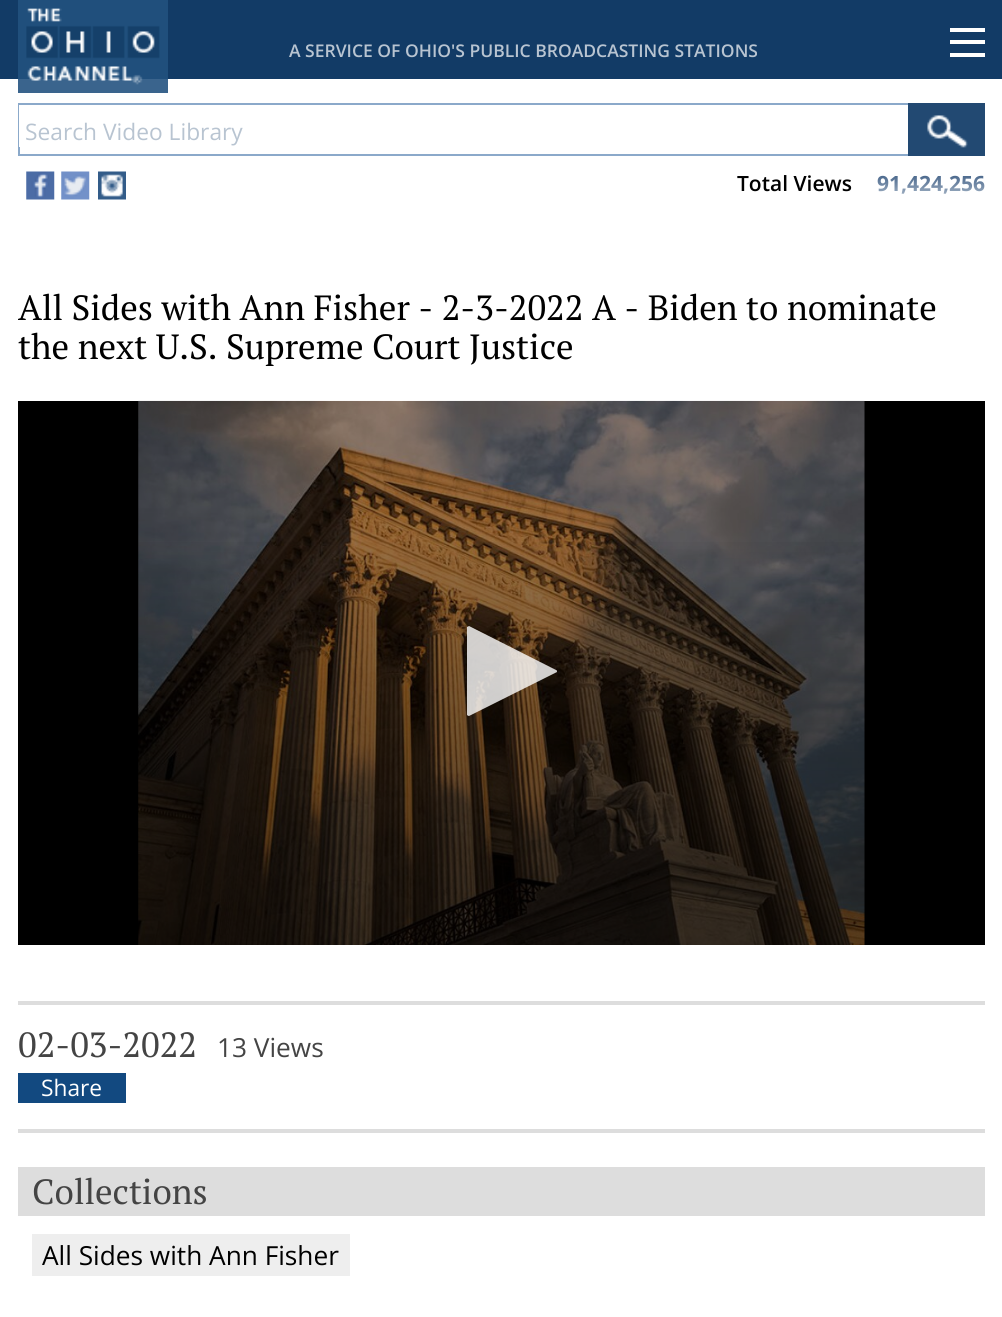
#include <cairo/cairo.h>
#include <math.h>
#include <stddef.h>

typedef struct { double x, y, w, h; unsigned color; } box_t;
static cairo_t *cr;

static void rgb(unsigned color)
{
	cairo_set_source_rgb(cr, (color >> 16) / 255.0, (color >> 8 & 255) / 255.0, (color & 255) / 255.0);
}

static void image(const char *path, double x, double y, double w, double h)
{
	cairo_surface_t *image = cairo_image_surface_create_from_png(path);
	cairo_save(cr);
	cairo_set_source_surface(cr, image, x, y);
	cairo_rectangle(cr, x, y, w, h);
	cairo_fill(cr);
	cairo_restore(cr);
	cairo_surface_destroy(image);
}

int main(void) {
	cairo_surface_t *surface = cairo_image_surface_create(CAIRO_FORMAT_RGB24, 1002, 1317);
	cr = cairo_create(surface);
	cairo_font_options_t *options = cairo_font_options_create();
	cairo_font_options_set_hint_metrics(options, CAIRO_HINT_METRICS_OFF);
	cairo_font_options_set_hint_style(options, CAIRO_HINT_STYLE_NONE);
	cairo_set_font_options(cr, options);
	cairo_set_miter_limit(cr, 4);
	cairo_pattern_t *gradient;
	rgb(0xffffff);
	cairo_paint(cr);
	{
		static const box_t items[] = {
			{18, 79, 150, 14, 0x3a648d},
			{0, 0, 1002, 79, 0x123b66},
			{950, 28, 35, 4, 0xffffff},
			{950, 40, 35, 4, 0xffffff},
			{950, 53, 35, 4, 0xffffff},
			{18, 0, 150, 79, 0x204f7c},
		};
		for (size_t i = 0; i < sizeof items / sizeof *items; i++) {
			rgb(items[i].color);
			cairo_rectangle(cr, items[i].x, items[i].y, items[i].w, items[i].h);
			cairo_fill(cr);
		}
	}
	image("img/1.png", 26, 8, 134, 77);
	cairo_rectangle(cr, 19, 104, 965, 51);
	rgb(0x8ba9ca);
	cairo_stroke(cr);
	rgb(0xffffff);
	cairo_rectangle(cr, 19, 105, 1, 42);
	cairo_fill(cr);
	rgb(0x224972);
	cairo_rectangle(cr, 908, 103, 77, 53);
	cairo_fill(cr);
	image("img/2.png", 927, 115, 41, 33);
	image("img/3.png", 26, 171, 29, 29);
	image("img/4.png", 61, 171, 29, 29);
	image("img/5.png", 98, 171, 28, 29);
	rgb(0x000000);
	cairo_rectangle(cr, 18, 401, 967, 544);
	cairo_fill(cr);
	image("img/6.png", 138, 400, 727, 545);
	gradient = cairo_pattern_create_linear(501, 525, 501, 945);
	cairo_pattern_add_color_stop_rgba(gradient, 0, 0, 0, 0, 0);
	cairo_pattern_add_color_stop_rgba(gradient, 0.77, 0, 0, 0, 0.4);
	cairo_pattern_add_color_stop_rgba(gradient, 1, 0, 0, 0, 0.4);
	cairo_set_source(cr, gradient);
	cairo_pattern_destroy(gradient);
	cairo_rectangle(cr, 138, 542, 727, 403);
	cairo_fill(cr);
	cairo_set_source_rgba(cr, 1, 1, 1, 0.8);
	cairo_new_path(cr);
	cairo_move_to(cr, 469, 716);
	cairo_curve_to(cr, 469, 716, 468, 716, 467, 715);
	cairo_line_to(cr, 467, 627);
	cairo_line_to(cr, 469, 626);
	cairo_line_to(cr, 556, 670);
	cairo_curve_to(cr, 557, 670, 557, 671, 557, 672);
	cairo_close_path(cr);
	cairo_fill(cr);
	{
		static const box_t items[] = {
			{18, 1001, 967, 4, 0xdddddd},
			{18, 1129, 967, 4, 0xdddddd},
			{18, 1073, 108, 30, 0x124980},
			{18, 1167, 967, 49, 0xdddddd},
			{32, 1234, 318, 42, 0xeeeeee},
		};
		for (size_t i = 0; i < sizeof items / sizeof *items; i++) {
			rgb(items[i].color);
			cairo_rectangle(cr, items[i].x, items[i].y, items[i].w, items[i].h);
			cairo_fill(cr);
		}
	}
	cairo_select_font_face(cr, "Open Sans SemiBold", CAIRO_FONT_SLANT_NORMAL, CAIRO_FONT_WEIGHT_NORMAL);
	cairo_set_font_size(cr, 17.5);
	rgb(0xb8c4d1);
	cairo_move_to(cr, 289, 57);
	cairo_show_text(cr, "A SERVICE OF OHIO'S PUBLIC BROADCASTING STATIONS");
	cairo_select_font_face(cr, "Open Sans", CAIRO_FONT_SLANT_NORMAL, CAIRO_FONT_WEIGHT_NORMAL);
	cairo_set_font_size(cr, 22.75);
	cairo_move_to(cr, 25, 140);
	cairo_show_text(cr, "Search Video Library");
	cairo_select_font_face(cr, "Open Sans SemiBold", CAIRO_FONT_SLANT_NORMAL, CAIRO_FONT_WEIGHT_NORMAL);
	cairo_set_font_size(cr, 21);
	rgb(0x000000);
	cairo_move_to(cr, 737, 191);
	cairo_show_text(cr, "Total Views");
	cairo_select_font_face(cr, "Open Sans", CAIRO_FONT_SLANT_NORMAL, CAIRO_FONT_WEIGHT_BOLD);
	gradient = cairo_pattern_create_linear(931, 168, 931, 198);
	cairo_pattern_add_color_stop_rgba(gradient, 0, 0.169, 0.306, 0.475, 1);
	cairo_pattern_add_color_stop_rgba(gradient, 1, 0.667, 0.722, 0.788, 1);
	cairo_set_source(cr, gradient);
	cairo_pattern_destroy(gradient);
	cairo_move_to(cr, 877, 191);
	cairo_show_text(cr, "91,424,256");
	cairo_select_font_face(cr, "PT Serif", CAIRO_FONT_SLANT_NORMAL, CAIRO_FONT_WEIGHT_NORMAL);
	cairo_set_font_size(cr, 35);
	rgb(0x000000);
	cairo_move_to(cr, 18, 320);
	cairo_show_text(cr, "All Sides with Ann Fisher - 2-3-2022 A - Biden to nominate");
	cairo_move_to(cr, 18, 359);
	cairo_show_text(cr, "the next U.S. Supreme Court Justice");
	rgb(0x444444);
	cairo_move_to(cr, 18, 1057);
	cairo_show_text(cr, "02-03-2022");
	cairo_select_font_face(cr, "Open Sans", CAIRO_FONT_SLANT_NORMAL, CAIRO_FONT_WEIGHT_NORMAL);
	cairo_set_font_size(cr, 26.25);
	cairo_move_to(cr, 217, 1057);
	cairo_show_text(cr, "13 Views");
	cairo_set_font_size(cr, 22.75);
	rgb(0xffffff);
	cairo_move_to(cr, 41, 1096);
	cairo_show_text(cr, "Share");
	cairo_select_font_face(cr, "PT Serif", CAIRO_FONT_SLANT_NORMAL, CAIRO_FONT_WEIGHT_NORMAL);
	cairo_set_font_size(cr, 35);
	rgb(0x444444);
	cairo_move_to(cr, 32, 1204);
	cairo_show_text(cr, "Collections");
	cairo_select_font_face(cr, "Open Sans", CAIRO_FONT_SLANT_NORMAL, CAIRO_FONT_WEIGHT_NORMAL);
	cairo_set_font_size(cr, 26.25);
	rgb(0x000000);
	cairo_move_to(cr, 42, 1265);
	cairo_show_text(cr, "All Sides with Ann Fisher");
	cairo_surface_write_to_png(surface, "page.png");
	cairo_font_options_destroy(options);
	cairo_destroy(cr);
	cairo_surface_destroy(surface);
	return 0;
}
